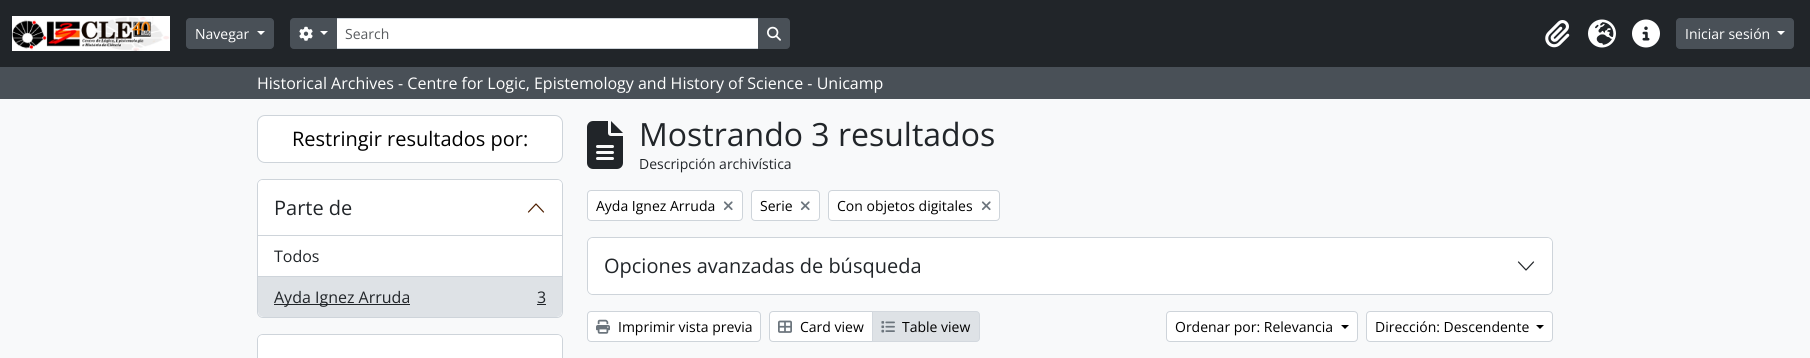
#include <cairo/cairo.h>
#include <math.h>
#include <stddef.h>

typedef struct { double x, y; const char *s; } line_t;
static cairo_t *cr;

static void rgb(unsigned color)
{
	cairo_set_source_rgb(cr, (color >> 16) / 255.0, (color >> 8 & 255) / 255.0, (color & 255) / 255.0);
}

static void rrect(double x, double y, double w, double h, double r)
{
	cairo_new_sub_path(cr);
	cairo_arc(cr, x + w - r, y + h - r, r, 0, M_PI / 2);
	cairo_arc(cr, x + r, y + h - r, r, M_PI / 2, M_PI);
	cairo_arc(cr, x + r, y + r, r, M_PI, 1.5 * M_PI);
	cairo_arc(cr, x + w - r, y + r, r, 1.5 * M_PI, 2 * M_PI);
	cairo_close_path(cr);
}

static void image(const char *path, double x, double y, double w, double h)
{
	cairo_surface_t *image = cairo_image_surface_create_from_png(path);
	cairo_save(cr);
	cairo_set_source_surface(cr, image, x, y);
	cairo_rectangle(cr, x, y, w, h);
	cairo_fill(cr);
	cairo_restore(cr);
	cairo_surface_destroy(image);
}

int main(void) {
	cairo_surface_t *surface = cairo_image_surface_create(CAIRO_FORMAT_RGB24, 1810, 358);
	cr = cairo_create(surface);
	cairo_font_options_t *options = cairo_font_options_create();
	cairo_font_options_set_hint_metrics(options, CAIRO_HINT_METRICS_OFF);
	cairo_font_options_set_hint_style(options, CAIRO_HINT_STYLE_NONE);
	cairo_set_font_options(cr, options);
	cairo_set_miter_limit(cr, 4);
	rgb(0xf8f9fa);
	cairo_paint(cr);
	rgb(0x212529);
	cairo_rectangle(cr, 0, 0, 1810, 67);
	cairo_fill(cr);
	image("img/1.png", 12, 16, 158, 35);
	rgb(0x495057);
	rrect(186.5, 18.5, 87, 30, 3.5);
	cairo_fill_preserve(cr);
	cairo_set_line_width(cr, 1);
	cairo_stroke(cr);
	rgb(0xffffff);
	cairo_new_path(cr);
	cairo_move_to(cr, 257, 31);
	cairo_line_to(cr, 265, 31);
	cairo_line_to(cr, 261, 35);
	cairo_close_path(cr);
	cairo_fill(cr);
	cairo_rectangle(cr, 336.5, 18.5, 422, 30);
	cairo_fill_preserve(cr);
	rgb(0xced4da);
	cairo_stroke(cr);
	rgb(0x495057);
	cairo_new_path(cr);
	cairo_move_to(cr, 294, 18.5);
	cairo_line_to(cr, 336.5, 18.5);
	cairo_line_to(cr, 336.5, 48.5);
	cairo_line_to(cr, 294, 48.5);
	cairo_curve_to(cr, 292, 48.5, 290.5, 47, 290.5, 45);
	cairo_line_to(cr, 290.5, 22);
	cairo_curve_to(cr, 290.5, 20, 292, 18.5, 294, 18.5);
	cairo_close_path(cr);
	cairo_fill_preserve(cr);
	cairo_stroke(cr);
	image("img/2.png", 299, 26, 14, 15);
	rgb(0xffffff);
	cairo_new_path(cr);
	cairo_move_to(cr, 320, 31);
	cairo_line_to(cr, 328, 31);
	cairo_line_to(cr, 324, 35);
	cairo_close_path(cr);
	cairo_fill(cr);
	rgb(0x495057);
	cairo_new_path(cr);
	cairo_move_to(cr, 758.5, 18.5);
	cairo_line_to(cr, 786, 18.5);
	cairo_curve_to(cr, 788, 18.5, 789.5, 20, 789.5, 22);
	cairo_line_to(cr, 789.5, 45);
	cairo_curve_to(cr, 789.5, 47, 788, 48.5, 786, 48.5);
	cairo_line_to(cr, 758.5, 48.5);
	cairo_close_path(cr);
	cairo_fill_preserve(cr);
	cairo_stroke(cr);
	image("img/3.png", 767, 26, 14, 15);
	image("img/4.png", 1545, 20, 25, 28);
	image("img/5.png", 1588, 19, 28, 29);
	image("img/6.png", 1632, 19, 28, 29);
	rrect(1676.5, 18.5, 117, 30, 3.5);
	cairo_fill_preserve(cr);
	cairo_stroke(cr);
	rgb(0xffffff);
	cairo_new_path(cr);
	cairo_move_to(cr, 1777, 31);
	cairo_line_to(cr, 1785, 31);
	cairo_line_to(cr, 1781, 35);
	cairo_close_path(cr);
	cairo_fill(cr);
	rgb(0x495057);
	cairo_rectangle(cr, 0, 67, 1810, 32);
	cairo_fill(cr);
	rgb(0xffffff);
	rrect(257.5, 115.5, 305, 47, 7.5);
	cairo_fill_preserve(cr);
	rgb(0xced4da);
	cairo_stroke(cr);
	rgb(0xffffff);
	rrect(257.5, 179.5, 305, 138, 5.5);
	cairo_fill_preserve(cr);
	rgb(0xced4da);
	cairo_stroke(cr);
	rgb(0xffffff);
	cairo_new_path(cr);
	cairo_move_to(cr, 263, 180);
	cairo_line_to(cr, 557, 180);
	cairo_curve_to(cr, 560, 180, 562, 182, 562, 185);
	cairo_line_to(cr, 562, 236);
	cairo_line_to(cr, 258, 236);
	cairo_line_to(cr, 258, 185);
	cairo_curve_to(cr, 258, 182, 260, 180, 263, 180);
	cairo_close_path(cr);
	cairo_fill(cr);
	rgb(0xced4da);
	cairo_rectangle(cr, 258, 235, 304, 1);
	cairo_fill(cr);
	cairo_new_path(cr);
	cairo_move_to(cr, 543.5, 212);
	cairo_line_to(cr, 536, 204);
	cairo_line_to(cr, 528.5, 212);
	rgb(0x4e1f00);
	cairo_set_line_width(cr, 1.2);
	cairo_set_line_cap(cr, CAIRO_LINE_CAP_ROUND);
	cairo_set_line_join(cr, CAIRO_LINE_JOIN_ROUND);
	cairo_stroke(cr);
	rgb(0xced4da);
	cairo_rectangle(cr, 258, 276, 304, 1);
	cairo_fill(cr);
	rgb(0xdee2e6);
	cairo_new_path(cr);
	cairo_move_to(cr, 258, 277);
	cairo_line_to(cr, 562, 277);
	cairo_line_to(cr, 562, 311);
	cairo_curve_to(cr, 562, 314.5, 559.5, 317, 556, 317);
	cairo_line_to(cr, 264, 317);
	cairo_curve_to(cr, 260.5, 317, 258, 314.5, 258, 311);
	cairo_close_path(cr);
	cairo_fill(cr);
	rgb(0x212529);
	cairo_rectangle(cr, 274, 304, 136, 1);
	cairo_fill(cr);
	cairo_rectangle(cr, 537, 304, 9, 1);
	cairo_fill(cr);
	rrect(257.5, 334.5, 305, 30, 5.5);
	rgb(0xced4da);
	cairo_set_line_width(cr, 1);
	cairo_set_line_cap(cr, CAIRO_LINE_CAP_BUTT);
	cairo_set_line_join(cr, CAIRO_LINE_JOIN_MITER);
	cairo_stroke(cr);
	rgb(0xffffff);
	cairo_new_path(cr);
	cairo_move_to(cr, 263, 335);
	cairo_line_to(cr, 557, 335);
	cairo_curve_to(cr, 560, 335, 562, 337, 562, 340);
	cairo_line_to(cr, 562, 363);
	cairo_line_to(cr, 258, 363);
	cairo_line_to(cr, 258, 340);
	cairo_curve_to(cr, 258, 337, 260, 335, 263, 335);
	cairo_close_path(cr);
	cairo_fill(cr);
	image("img/7.png", 587, 121, 36, 48);
	rrect(587.5, 190.5, 155, 30, 3.5);
	cairo_fill_preserve(cr);
	rgb(0xced4da);
	cairo_stroke(cr);
	image("img/8.png", 723, 201, 10, 10);
	rgb(0xffffff);
	rrect(751.5, 190.5, 68, 30, 3.5);
	cairo_fill_preserve(cr);
	rgb(0xced4da);
	cairo_stroke(cr);
	image("img/8.png", 800, 201, 10, 10);
	rgb(0xffffff);
	rrect(828.5, 190.5, 171, 30, 3.5);
	cairo_fill_preserve(cr);
	rgb(0xced4da);
	cairo_stroke(cr);
	image("img/8.png", 981, 201, 10, 10);
	rrect(587.5, 237.5, 965, 57, 5.5);
	cairo_stroke(cr);
	rgb(0xffffff);
	rrect(588, 238, 964, 56, 5);
	cairo_fill(cr);
	cairo_new_path(cr);
	cairo_move_to(cr, 1518.5, 262);
	cairo_line_to(cr, 1526, 270);
	cairo_line_to(cr, 1533.5, 262);
	rgb(0x212529);
	cairo_set_line_width(cr, 1.2);
	cairo_set_line_cap(cr, CAIRO_LINE_CAP_ROUND);
	cairo_set_line_join(cr, CAIRO_LINE_JOIN_ROUND);
	cairo_stroke(cr);
	rgb(0xffffff);
	rrect(587.5, 311.5, 173, 30, 3.5);
	cairo_fill_preserve(cr);
	rgb(0xced4da);
	cairo_set_line_width(cr, 1);
	cairo_set_line_cap(cr, CAIRO_LINE_CAP_BUTT);
	cairo_set_line_join(cr, CAIRO_LINE_JOIN_MITER);
	cairo_stroke(cr);
	image("img/9.png", 596, 319, 14, 15);
	rgb(0xffffff);
	cairo_new_path(cr);
	cairo_move_to(cr, 773, 311.5);
	cairo_line_to(cr, 872.5, 311.5);
	cairo_line_to(cr, 872.5, 341.5);
	cairo_line_to(cr, 773, 341.5);
	cairo_curve_to(cr, 771, 341.5, 769.5, 340, 769.5, 338);
	cairo_line_to(cr, 769.5, 315);
	cairo_curve_to(cr, 769.5, 313, 771, 311.5, 773, 311.5);
	cairo_close_path(cr);
	cairo_fill_preserve(cr);
	rgb(0xced4da);
	cairo_stroke(cr);
	image("img/10.png", 778, 320, 14, 13);
	rgb(0xdee2e6);
	cairo_new_path(cr);
	cairo_move_to(cr, 872.5, 311.5);
	cairo_line_to(cr, 976, 311.5);
	cairo_curve_to(cr, 978, 311.5, 979.5, 313, 979.5, 315);
	cairo_line_to(cr, 979.5, 338);
	cairo_curve_to(cr, 979.5, 340, 978, 341.5, 976, 341.5);
	cairo_line_to(cr, 872.5, 341.5);
	cairo_close_path(cr);
	cairo_fill_preserve(cr);
	rgb(0xd3d8de);
	cairo_stroke(cr);
	image("img/11.png", 881, 321, 14, 12);
	rgb(0xffffff);
	rrect(1166.5, 311.5, 191, 30, 3.5);
	cairo_fill_preserve(cr);
	rgb(0xced4da);
	cairo_stroke(cr);
	rgb(0x000000);
	cairo_new_path(cr);
	cairo_move_to(cr, 1341, 325);
	cairo_line_to(cr, 1349, 325);
	cairo_line_to(cr, 1345, 329);
	cairo_close_path(cr);
	cairo_fill(cr);
	rgb(0xffffff);
	rrect(1366.5, 311.5, 186, 30, 3.5);
	cairo_fill_preserve(cr);
	rgb(0xced4da);
	cairo_stroke(cr);
	rgb(0x000000);
	cairo_new_path(cr);
	cairo_move_to(cr, 1536, 325);
	cairo_line_to(cr, 1544, 325);
	cairo_line_to(cr, 1540, 329);
	cairo_close_path(cr);
	cairo_fill(cr);
	cairo_select_font_face(cr, "Open Sans", CAIRO_FONT_SLANT_NORMAL, CAIRO_FONT_WEIGHT_NORMAL);
	cairo_set_font_size(cr, 14);
	rgb(0xffffff);
	cairo_move_to(cr, 195, 39);
	cairo_show_text(cr, "Navegar");
	rgb(0x595c5f);
	cairo_move_to(cr, 345, 39);
	cairo_show_text(cr, "Search");
	rgb(0xffffff);
	cairo_move_to(cr, 1685, 39);
	cairo_show_text(cr, "Iniciar sesión");
	cairo_set_font_size(cr, 16);
	cairo_move_to(cr, 257, 89);
	cairo_show_text(cr, "Historical Archives - Centre for Logic, Epistemology and History of Science - Unicamp");
	cairo_set_font_size(cr, 20);
	rgb(0x000000);
	cairo_move_to(cr, 292, 146);
	cairo_show_text(cr, "Restringir resultados por:");
	rgb(0x212529);
	cairo_move_to(cr, 274, 215);
	cairo_show_text(cr, "Parte de");
	cairo_set_font_size(cr, 16);
	{
		static const line_t items[] = {
			{274, 262, "Todos"},
			{274, 303, "Ayda Ignez Arruda"},
			{537, 303, "3"},
		};
		for (size_t i = 0; i < sizeof items / sizeof *items; i++) {
			cairo_move_to(cr, items[i].x, items[i].y);
			cairo_show_text(cr, items[i].s);
		}
	}
	cairo_set_font_size(cr, 32);
	cairo_move_to(cr, 639, 146);
	cairo_show_text(cr, "Mostrando 3 resultados");
	cairo_set_font_size(cr, 14);
	cairo_move_to(cr, 639, 169);
	cairo_show_text(cr, "Descripción archivística");
	rgb(0x000000);
	{
		static const line_t items[] = {
			{596, 211, "Ayda Ignez Arruda"},
			{760, 211, "Serie"},
			{837, 211, "Con objetos digitales"},
		};
		for (size_t i = 0; i < sizeof items / sizeof *items; i++) {
			cairo_move_to(cr, items[i].x, items[i].y);
			cairo_show_text(cr, items[i].s);
		}
	}
	cairo_set_font_size(cr, 20);
	rgb(0x212529);
	cairo_move_to(cr, 604, 273);
	cairo_show_text(cr, "Opciones avanzadas de búsqueda");
	cairo_set_font_size(cr, 14);
	rgb(0x000000);
	{
		static const line_t items[] = {
			{618, 332, "Imprimir vista previa"},
			{800, 332, "Card view"},
			{902, 332, "Table view"},
			{1175, 332, "Ordenar por: Relevancia"},
			{1375, 332, "Dirección: Descendente"},
		};
		for (size_t i = 0; i < sizeof items / sizeof *items; i++) {
			cairo_move_to(cr, items[i].x, items[i].y);
			cairo_show_text(cr, items[i].s);
		}
	}
	cairo_surface_write_to_png(surface, "page.png");
	cairo_font_options_destroy(options);
	cairo_destroy(cr);
	cairo_surface_destroy(surface);
	return 0;
}
